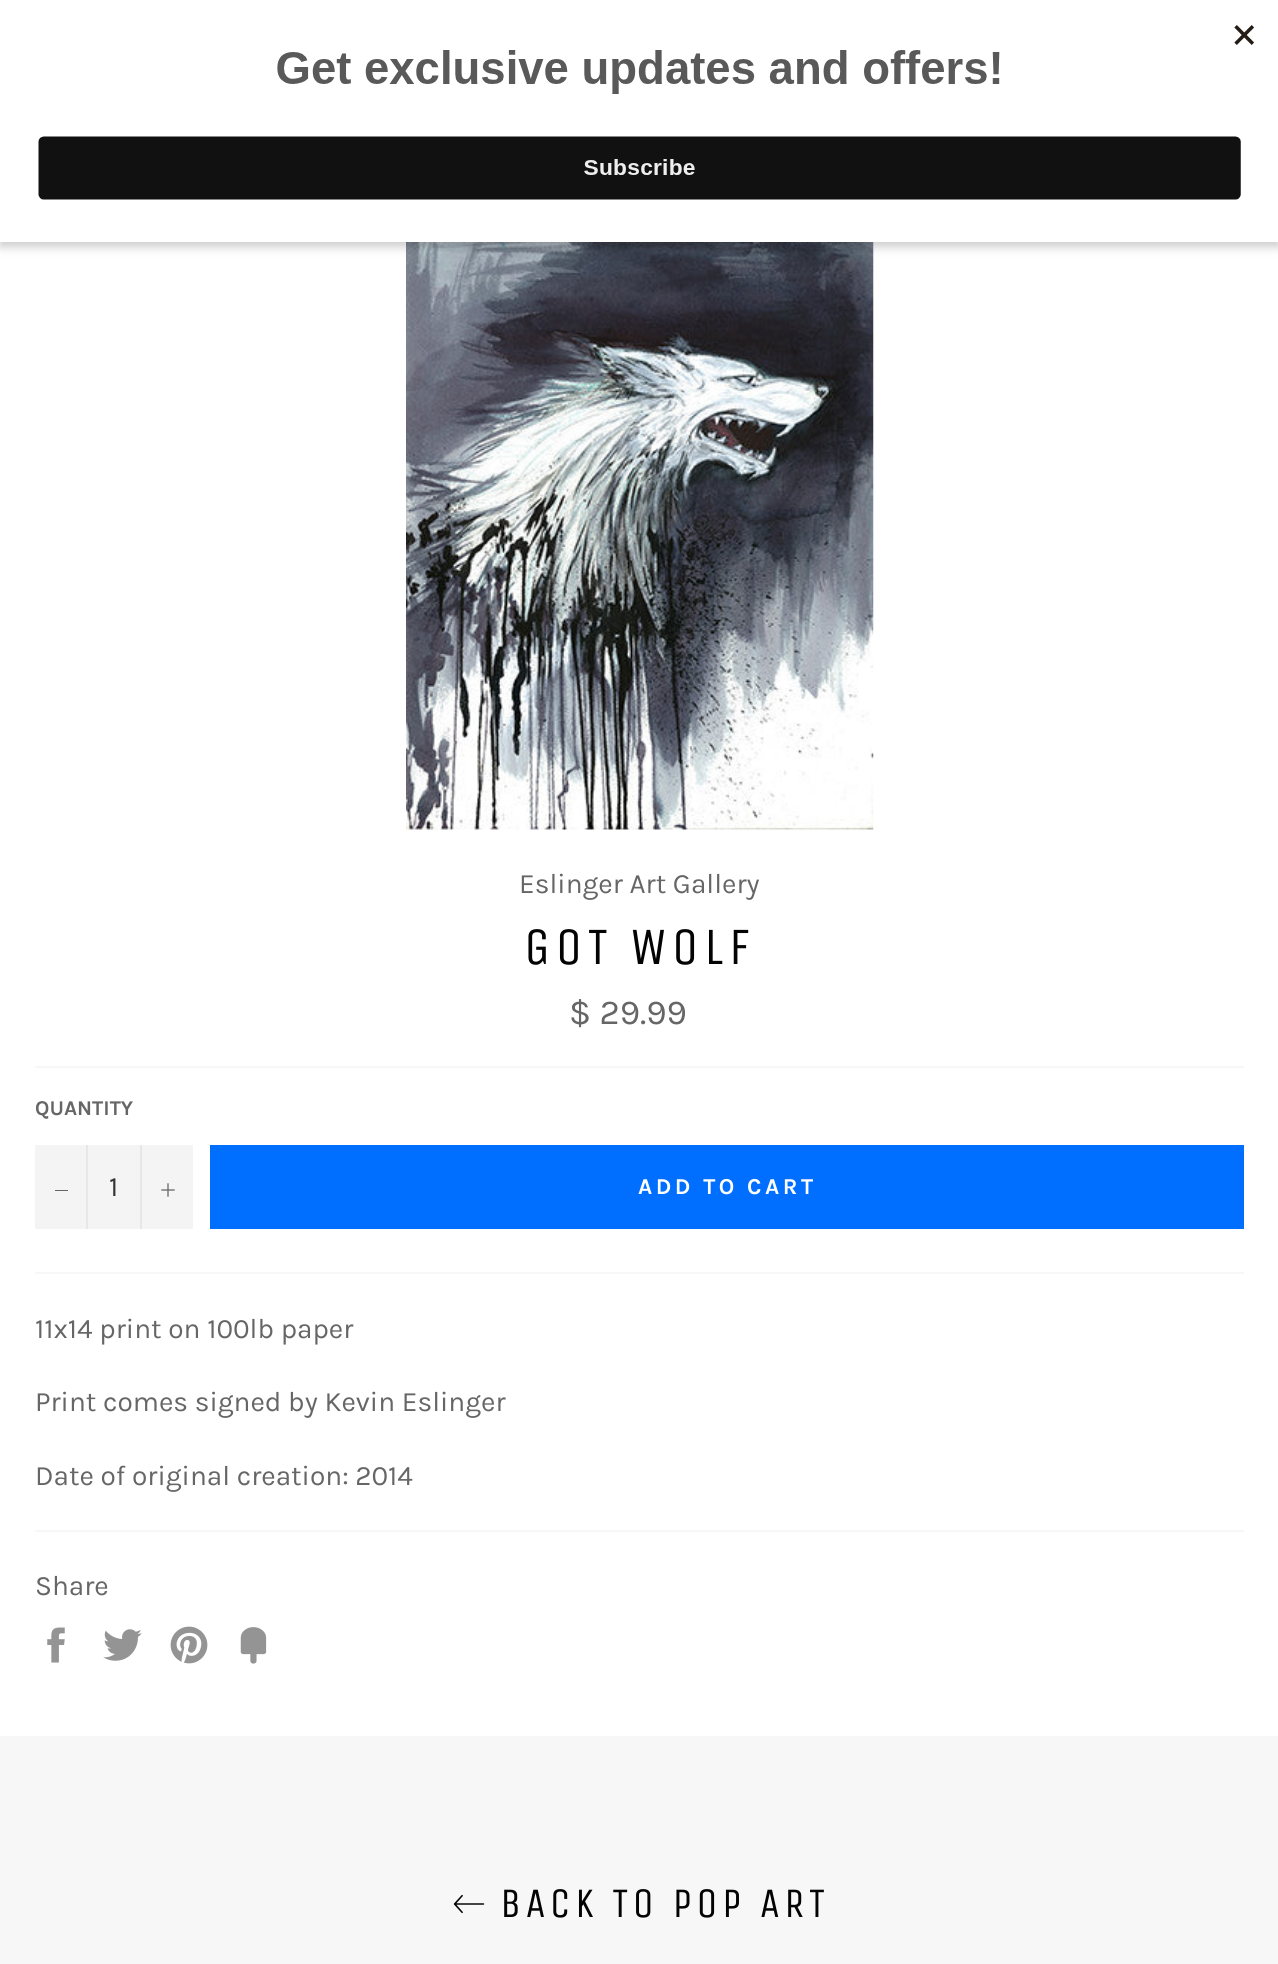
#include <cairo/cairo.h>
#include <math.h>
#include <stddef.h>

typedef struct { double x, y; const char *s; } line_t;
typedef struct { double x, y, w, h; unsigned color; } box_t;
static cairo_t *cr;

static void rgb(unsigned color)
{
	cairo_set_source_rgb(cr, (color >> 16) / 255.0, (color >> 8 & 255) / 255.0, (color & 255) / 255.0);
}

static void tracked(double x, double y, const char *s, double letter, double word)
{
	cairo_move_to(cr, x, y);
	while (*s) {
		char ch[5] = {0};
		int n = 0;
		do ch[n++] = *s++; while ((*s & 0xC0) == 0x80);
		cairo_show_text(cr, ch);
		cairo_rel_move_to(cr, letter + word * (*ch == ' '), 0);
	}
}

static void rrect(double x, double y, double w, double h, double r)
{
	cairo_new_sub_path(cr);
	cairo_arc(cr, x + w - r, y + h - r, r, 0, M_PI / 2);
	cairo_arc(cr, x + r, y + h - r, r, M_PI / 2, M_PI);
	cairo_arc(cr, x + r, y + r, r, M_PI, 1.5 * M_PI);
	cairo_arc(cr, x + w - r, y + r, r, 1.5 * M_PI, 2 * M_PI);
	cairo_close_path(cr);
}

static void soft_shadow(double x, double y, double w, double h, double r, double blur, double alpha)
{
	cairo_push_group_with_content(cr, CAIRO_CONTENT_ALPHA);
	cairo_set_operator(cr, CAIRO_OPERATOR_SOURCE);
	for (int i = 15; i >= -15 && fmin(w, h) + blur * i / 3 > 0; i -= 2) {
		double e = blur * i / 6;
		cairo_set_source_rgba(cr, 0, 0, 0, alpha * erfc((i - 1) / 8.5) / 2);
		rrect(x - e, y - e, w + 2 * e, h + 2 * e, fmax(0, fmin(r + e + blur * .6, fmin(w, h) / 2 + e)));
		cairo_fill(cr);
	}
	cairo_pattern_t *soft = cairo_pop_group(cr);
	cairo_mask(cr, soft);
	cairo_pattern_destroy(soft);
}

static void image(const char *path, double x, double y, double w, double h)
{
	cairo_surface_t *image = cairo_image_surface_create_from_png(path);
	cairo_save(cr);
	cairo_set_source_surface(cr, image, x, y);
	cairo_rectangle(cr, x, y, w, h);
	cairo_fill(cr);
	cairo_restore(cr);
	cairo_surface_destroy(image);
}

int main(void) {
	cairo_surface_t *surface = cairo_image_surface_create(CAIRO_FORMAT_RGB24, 1278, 1964);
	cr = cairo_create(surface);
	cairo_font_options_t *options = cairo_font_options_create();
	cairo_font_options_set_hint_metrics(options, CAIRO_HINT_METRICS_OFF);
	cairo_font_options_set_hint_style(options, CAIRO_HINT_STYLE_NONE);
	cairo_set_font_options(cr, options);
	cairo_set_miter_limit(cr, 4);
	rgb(0xffffff);
	cairo_paint(cr);
	image("img/2.png", 406, 242, 468, 588);
	rgb(0x000000);
	soft_shadow(0, 5, 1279, 242, 0, 5, 0.2);
	rgb(0xffffff);
	cairo_rectangle(cr, 0, 0, 1278, 242);
	cairo_fill(cr);
	image("img/1.png", 38, 25, 1216, 175);
	{
		static const box_t items[] = {
			{35, 1066, 1209, 2, 0xf7f7f7},
			{35, 1145, 158, 84, 0xf4f4f4},
			{86, 1145, 2, 84, 0xe7e7e7},
			{55, 1190, 13, 1, 0x666666},
			{140, 1145, 2, 84, 0xe7e7e7},
		};
		for (size_t i = 0; i < sizeof items / sizeof *items; i++) {
			rgb(items[i].color);
			cairo_rectangle(cr, items[i].x, items[i].y, items[i].w, items[i].h);
			cairo_fill(cr);
		}
	}
	image("img/3.png", 161, 1183, 14, 14);
	{
		static const box_t items[] = {
			{210, 1145, 1034, 84, 0x006eff},
			{35, 1272, 1209, 2, 0xf7f7f7},
			{35, 1530, 1209, 2, 0xf7f7f7},
		};
		for (size_t i = 0; i < sizeof items / sizeof *items; i++) {
			rgb(items[i].color);
			cairo_rectangle(cr, items[i].x, items[i].y, items[i].w, items[i].h);
			cairo_fill(cr);
		}
	}
	image("img/4.png", 47, 1627, 18, 36);
	image("img/5.png", 103, 1629, 39, 32);
	image("img/6.png", 170, 1626, 38, 38);
	image("img/7.png", 240, 1627, 27, 37);
	cairo_rectangle(cr, 0, 1736, 1278, 228);
	cairo_fill(cr);
	image("img/8.png", 453, 1894, 32, 20);
	cairo_select_font_face(cr, "Karla", CAIRO_FONT_SLANT_NORMAL, CAIRO_FONT_WEIGHT_NORMAL);
	cairo_set_font_size(cr, 28);
	rgb(0x666666);
	cairo_move_to(cr, 519, 893);
	cairo_show_text(cr, "Eslinger Art Gallery");
	cairo_select_font_face(cr, "Unica One", CAIRO_FONT_SLANT_NORMAL, CAIRO_FONT_WEIGHT_NORMAL);
	cairo_set_font_size(cr, 52.5);
	rgb(0x030303);
	tracked(524, 964, "GOT WOLF", 5.25, 0);
	cairo_select_font_face(cr, "Karla", CAIRO_FONT_SLANT_NORMAL, CAIRO_FONT_WEIGHT_NORMAL);
	cairo_set_font_size(cr, 35);
	rgb(0x666666);
	cairo_move_to(cr, 569, 1024);
	cairo_show_text(cr, "$ 29.99");
	cairo_select_font_face(cr, "Karla", CAIRO_FONT_SLANT_NORMAL, CAIRO_FONT_WEIGHT_BOLD);
	cairo_set_font_size(cr, 21);
	cairo_move_to(cr, 35, 1115);
	cairo_show_text(cr, "QUANTITY");
	cairo_select_font_face(cr, "Karla", CAIRO_FONT_SLANT_NORMAL, CAIRO_FONT_WEIGHT_NORMAL);
	cairo_set_font_size(cr, 28);
	rgb(0x333333);
	cairo_move_to(cr, 109, 1196);
	cairo_show_text(cr, "1");
	cairo_select_font_face(cr, "Karla", CAIRO_FONT_SLANT_NORMAL, CAIRO_FONT_WEIGHT_BOLD);
	cairo_set_font_size(cr, 22.75);
	rgb(0xffffff);
	tracked(638, 1194, "ADD TO CART", 3.5, 0);
	cairo_select_font_face(cr, "Karla", CAIRO_FONT_SLANT_NORMAL, CAIRO_FONT_WEIGHT_NORMAL);
	cairo_set_font_size(cr, 28);
	rgb(0x666666);
	{
		static const line_t items[] = {
			{35, 1338, "11x14 print on 100lb paper"},
			{35, 1411, "Print comes signed by Kevin Eslinger"},
			{35, 1485, "Date of original creation: 2014"},
			{35, 1595, "Share"},
		};
		for (size_t i = 0; i < sizeof items / sizeof *items; i++) {
			cairo_move_to(cr, items[i].x, items[i].y);
			cairo_show_text(cr, items[i].s);
		}
	}
	cairo_select_font_face(cr, "Unica One", CAIRO_FONT_SLANT_NORMAL, CAIRO_FONT_WEIGHT_NORMAL);
	cairo_set_font_size(cr, 42);
	rgb(0x030303);
	tracked(500, 1917, "BACK TO POP ART", 4.25, 0);
	cairo_surface_write_to_png(surface, "page.png");
	cairo_font_options_destroy(options);
	cairo_destroy(cr);
	cairo_surface_destroy(surface);
	return 0;
}
